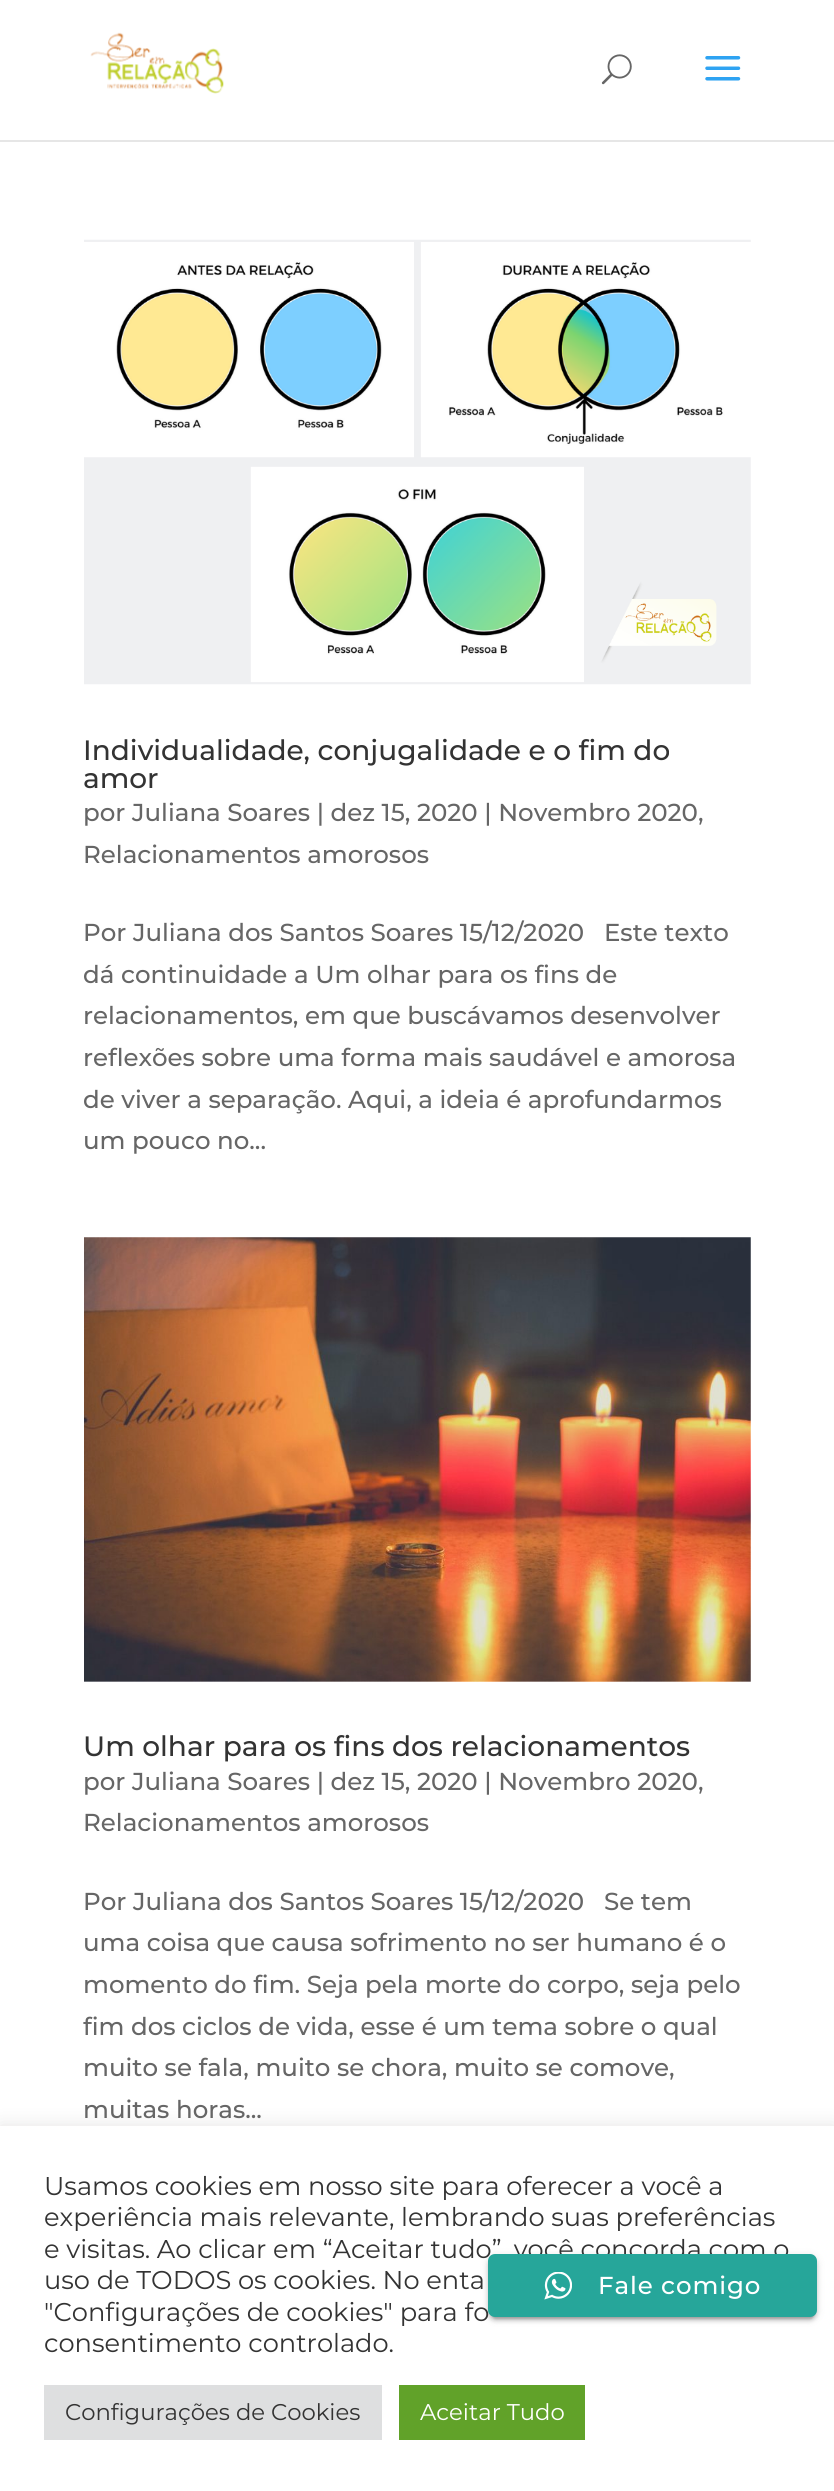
#include <cairo/cairo.h>
#include <math.h>
#include <stddef.h>

typedef struct { double x, y; const char *s; } line_t;
typedef struct { double x, y, w, h; unsigned color; } box_t;
static cairo_t *cr;

static void rgb(unsigned color)
{
	cairo_set_source_rgb(cr, (color >> 16) / 255.0, (color >> 8 & 255) / 255.0, (color & 255) / 255.0);
}

static void tracked(double x, double y, const char *s, double letter, double word)
{
	cairo_move_to(cr, x, y);
	while (*s) {
		char ch[5] = {0};
		int n = 0;
		do ch[n++] = *s++; while ((*s & 0xC0) == 0x80);
		cairo_show_text(cr, ch);
		cairo_rel_move_to(cr, letter + word * (*ch == ' '), 0);
	}
}

static void rrect(double x, double y, double w, double h, double r)
{
	cairo_new_sub_path(cr);
	cairo_arc(cr, x + w - r, y + h - r, r, 0, M_PI / 2);
	cairo_arc(cr, x + r, y + h - r, r, M_PI / 2, M_PI);
	cairo_arc(cr, x + r, y + r, r, M_PI, 1.5 * M_PI);
	cairo_arc(cr, x + w - r, y + r, r, 1.5 * M_PI, 2 * M_PI);
	cairo_close_path(cr);
}

static void soft_shadow(double x, double y, double w, double h, double r, double blur, double alpha)
{
	cairo_push_group_with_content(cr, CAIRO_CONTENT_ALPHA);
	cairo_set_operator(cr, CAIRO_OPERATOR_SOURCE);
	for (int i = 15; i >= -15 && fmin(w, h) + blur * i / 3 > 0; i -= 2) {
		double e = blur * i / 6;
		cairo_set_source_rgba(cr, 0, 0, 0, alpha * erfc((i - 1) / 8.5) / 2);
		rrect(x - e, y - e, w + 2 * e, h + 2 * e, fmax(0, fmin(r + e + blur * .6, fmin(w, h) / 2 + e)));
		cairo_fill(cr);
	}
	cairo_pattern_t *soft = cairo_pop_group(cr);
	cairo_mask(cr, soft);
	cairo_pattern_destroy(soft);
}

static void image(const char *path, double x, double y, double w, double h)
{
	cairo_surface_t *image = cairo_image_surface_create_from_png(path);
	cairo_save(cr);
	cairo_set_source_surface(cr, image, x, y);
	cairo_rectangle(cr, x, y, w, h);
	cairo_fill(cr);
	cairo_restore(cr);
	cairo_surface_destroy(image);
}

int main(void) {
	cairo_surface_t *surface = cairo_image_surface_create(CAIRO_FORMAT_RGB24, 834, 2491);
	cr = cairo_create(surface);
	cairo_font_options_t *options = cairo_font_options_create();
	cairo_font_options_set_hint_metrics(options, CAIRO_HINT_METRICS_OFF);
	cairo_font_options_set_hint_style(options, CAIRO_HINT_STYLE_NONE);
	cairo_set_font_options(cr, options);
	cairo_set_miter_limit(cr, 4);
	rgb(0xffffff);
	cairo_paint(cr);
	rgb(0xe6e6e6);
	cairo_new_path(cr);
	cairo_move_to(cr, 0, 140);
	cairo_line_to(cr, 0, 142);
	cairo_line_to(cr, 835, 142);
	cairo_line_to(cr, 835, 2);
	cairo_line_to(cr, 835, 140);
	cairo_close_path(cr);
	cairo_fill(cr);
	image("img/1.png", 90, 32, 134, 62);
	image("img/2.png", 601, 54, 31, 31);
	image("img/3.png", 705, 56, 36, 25);
	image("img/4.png", 84, 239, 667, 446);
	image("img/5.png", 84, 1237, 667, 445);
	rgb(0xacabab);
	soft_shadow(0, 2125, 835, 365, 0, 9, 0.3);
	{
		static const box_t items[] = {
			{0, 2126, 834, 365, 0xffffff},
			{44, 2385, 338, 55, 0xdedfe0},
			{399, 2385, 186, 55, 0x61a229},
		};
		for (size_t i = 0; i < sizeof items / sizeof *items; i++) {
			rgb(items[i].color);
			cairo_rectangle(cr, items[i].x, items[i].y, items[i].w, items[i].h);
			cairo_fill(cr);
		}
	}
	rgb(0x000000);
	soft_shadow(492, 2263, 322, 56, 4, 1, 0.2);
	soft_shadow(488, 2256, 329, 63, 7, 4.5, 0.12);
	soft_shadow(488, 2258, 329, 63, 7, 2, 0.14);
	cairo_select_font_face(cr, "Montserrat Medium", CAIRO_FONT_SLANT_NORMAL, CAIRO_FONT_WEIGHT_NORMAL);
	cairo_set_font_size(cr, 28);
	rgb(0x333333);
	cairo_move_to(cr, 83, 760);
	cairo_show_text(cr, "Individualidade, conjugalidade e o fim do");
	cairo_move_to(cr, 83, 788);
	cairo_show_text(cr, "amor");
	cairo_set_font_size(cr, 24.5);
	rgb(0x666666);
	{
		static const line_t items[] = {
			{83, 821, "por Juliana Soares | dez 15, 2020 | Novembro 2020,"},
			{83, 863, "Relacionamentos amorosos"},
			{83, 941, "Por Juliana dos Santos Soares 15/12/2020   Este texto"},
			{83, 983, "dá continuidade a Um olhar para os fins de"},
			{83, 1024, "relacionamentos, em que buscávamos desenvolver"},
			{83, 1066, "reflexões sobre uma forma mais saudável e amorosa"},
			{83, 1108, "de viver a separação. Aqui, a ideia é aprofundarmos"},
			{83, 1149, "um pouco no..."},
		};
		for (size_t i = 0; i < sizeof items / sizeof *items; i++) {
			cairo_move_to(cr, items[i].x, items[i].y);
			cairo_show_text(cr, items[i].s);
		}
	}
	cairo_set_font_size(cr, 28);
	rgb(0x333333);
	cairo_move_to(cr, 83, 1756);
	cairo_show_text(cr, "Um olhar para os fins dos relacionamentos");
	cairo_set_font_size(cr, 24.5);
	rgb(0x666666);
	{
		static const line_t items[] = {
			{83, 1790, "por Juliana Soares | dez 15, 2020 | Novembro 2020,"},
			{83, 1831, "Relacionamentos amorosos"},
			{83, 1910, "Por Juliana dos Santos Soares 15/12/2020   Se tem"},
			{83, 1951, "uma coisa que causa sofrimento no ser humano é o"},
			{83, 1993, "momento do fim. Seja pela morte do corpo, seja pelo"},
			{83, 2035, "fim dos ciclos de vida, esse é um tema sobre o qual"},
			{83, 2076, "muito se fala, muito se chora, muito se comove,"},
			{83, 2118, "muitas horas..."},
		};
		for (size_t i = 0; i < sizeof items / sizeof *items; i++) {
			cairo_move_to(cr, items[i].x, items[i].y);
			cairo_show_text(cr, items[i].s);
		}
	}
	cairo_select_font_face(cr, "Montserrat", CAIRO_FONT_SLANT_NORMAL, CAIRO_FONT_WEIGHT_NORMAL);
	cairo_set_font_size(cr, 25.7);
	rgb(0x333333);
	{
		static const line_t items[] = {
			{44, 2195, "Usamos cookies em nosso site para oferecer a você a"},
			{44, 2226, "experiência mais relevante, lembrando suas preferências"},
			{44, 2258, "e visitas. Ao clicar em “Aceitar tudo”, você concorda com o"},
			{44, 2289, "uso de TODOS os cookies. No enta"},
			{44, 2321, "\"Configurações de cookies\" para fo"},
			{44, 2352, "consentimento controlado."},
		};
		for (size_t i = 0; i < sizeof items / sizeof *items; i++) {
			cairo_move_to(cr, items[i].x, items[i].y);
			cairo_show_text(cr, items[i].s);
		}
	}
	cairo_set_font_size(cr, 22.75);
	cairo_move_to(cr, 65, 2420);
	cairo_show_text(cr, "Configurações de Cookies");
	rgb(0xffffff);
	cairo_move_to(cr, 420, 2420);
	cairo_show_text(cr, "Aceitar Tudo");
	rgb(0x26a69a);
	rrect(488, 2254, 329, 63, 7);
	cairo_fill(cr);
	image("img/6.png", 544, 2272, 28, 28);
	cairo_select_font_face(cr, "Montserrat Medium", CAIRO_FONT_SLANT_NORMAL, CAIRO_FONT_WEIGHT_NORMAL);
	cairo_set_font_size(cr, 24.5);
	rgb(0xffffff);
	tracked(598, 2294, "Fale comigo", 0.9, 0);
	cairo_surface_write_to_png(surface, "page.png");
	cairo_font_options_destroy(options);
	cairo_destroy(cr);
	cairo_surface_destroy(surface);
	return 0;
}
